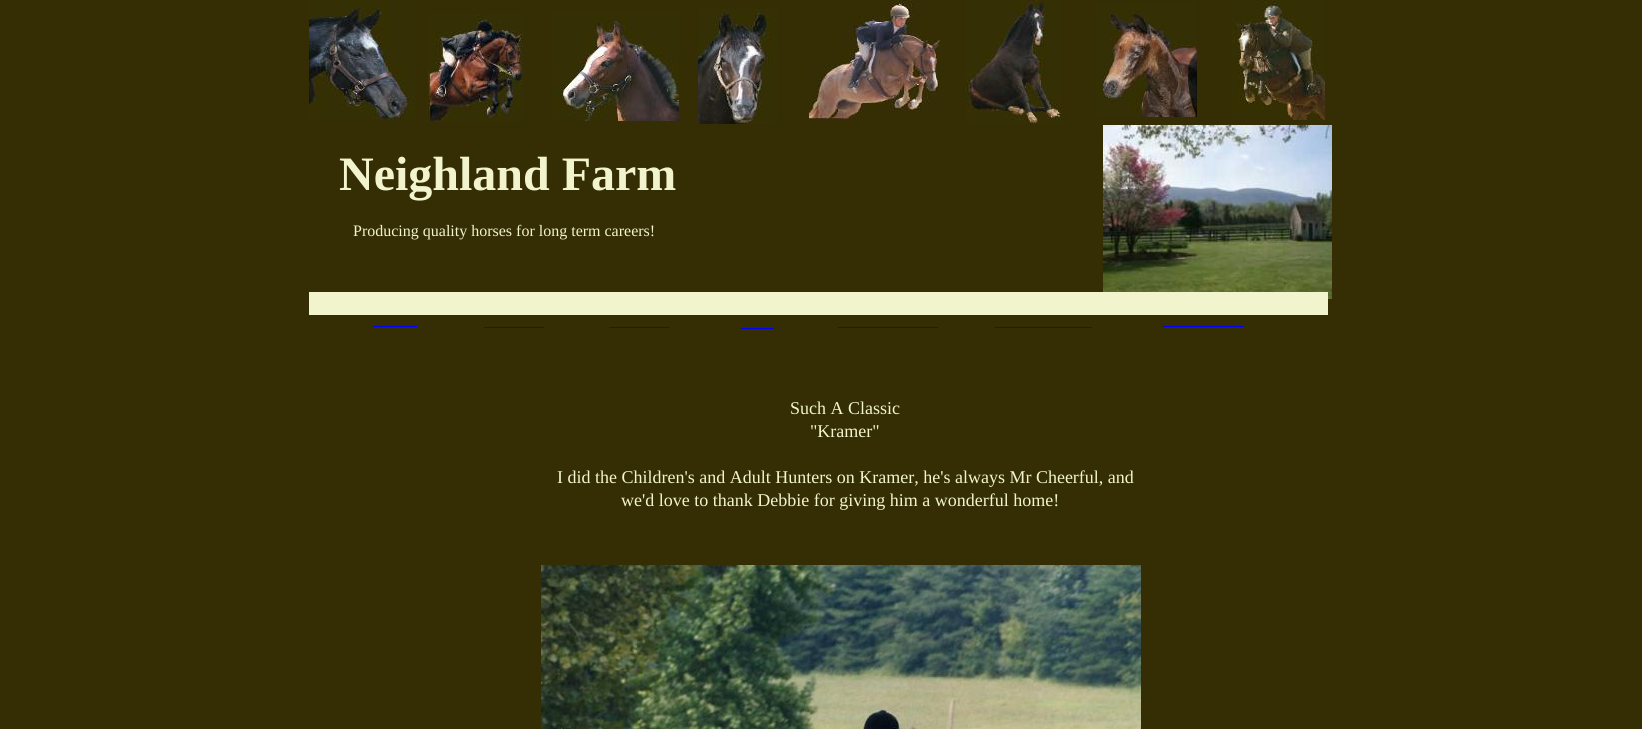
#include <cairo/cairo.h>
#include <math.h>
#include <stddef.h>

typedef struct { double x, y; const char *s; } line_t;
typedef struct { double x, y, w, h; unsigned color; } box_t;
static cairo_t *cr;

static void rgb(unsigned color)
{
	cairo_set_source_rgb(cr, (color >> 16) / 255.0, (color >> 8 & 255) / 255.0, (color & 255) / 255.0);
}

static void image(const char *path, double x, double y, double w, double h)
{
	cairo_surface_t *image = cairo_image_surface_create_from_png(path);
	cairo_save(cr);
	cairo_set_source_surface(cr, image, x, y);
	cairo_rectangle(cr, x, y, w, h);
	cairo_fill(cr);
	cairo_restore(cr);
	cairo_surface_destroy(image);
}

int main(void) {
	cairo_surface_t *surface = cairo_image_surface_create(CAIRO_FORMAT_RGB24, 1642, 729);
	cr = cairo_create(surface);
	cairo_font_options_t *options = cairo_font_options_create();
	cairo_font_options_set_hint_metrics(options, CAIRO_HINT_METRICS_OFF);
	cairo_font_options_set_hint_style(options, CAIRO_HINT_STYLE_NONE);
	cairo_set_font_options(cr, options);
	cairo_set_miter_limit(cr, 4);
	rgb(0x352e04);
	cairo_paint(cr);
	image("img/1.png", 309, 0, 106, 121);
	image("img/2.png", 427, 14, 97, 108);
	image("img/3.png", 553, 12, 126, 109);
	image("img/4.png", 698, 9, 80, 115);
	image("img/5.png", 809, 0, 131, 119);
	image("img/6.png", 966, 0, 96, 124);
	image("img/7.png", 1095, 2, 102, 115);
	image("img/8.png", 1231, 0, 94, 120);
	image("img/9.png", 1103, 125, 229, 174);
	{
		static const box_t items[] = {
			{309, 292, 1019, 23, 0xf2f4cd},
			{373, 326, 44, 1, 0x0000ff},
			{1163, 326, 81, 1, 0x0000ff},
			{484, 327, 60, 1, 0x0000ff},
			{609, 327, 60, 1, 0x0000ff},
			{838, 327, 100, 1, 0x0000ff},
			{995, 327, 97, 1, 0x0000ff},
			{741, 328, 33, 1, 0x0000ff},
		};
		for (size_t i = 0; i < sizeof items / sizeof *items; i++) {
			rgb(items[i].color);
			cairo_rectangle(cr, items[i].x, items[i].y, items[i].w, items[i].h);
			cairo_fill(cr);
		}
	}
	image("img/10.png", 541, 565, 600, 164);
	cairo_select_font_face(cr, "Liberation Serif", CAIRO_FONT_SLANT_NORMAL, CAIRO_FONT_WEIGHT_BOLD);
	cairo_set_font_size(cr, 48);
	rgb(0xf2f4cd);
	cairo_move_to(cr, 339, 190);
	cairo_show_text(cr, "Neighland Farm");
	cairo_select_font_face(cr, "Liberation Serif", CAIRO_FONT_SLANT_NORMAL, CAIRO_FONT_WEIGHT_NORMAL);
	cairo_set_font_size(cr, 16);
	cairo_move_to(cr, 353, 236);
	cairo_show_text(cr, "Producing quality horses for long term careers!");
	cairo_set_font_size(cr, 18);
	{
		static const line_t items[] = {
			{790, 414, "Such A Classic"},
			{810, 437, "\"Kramer\""},
			{557, 483, "I did the Children's and Adult Hunters on Kramer, he's always Mr Cheerful, and"},
			{621, 506, "we'd love to thank Debbie for giving him a wonderful home!"},
		};
		for (size_t i = 0; i < sizeof items / sizeof *items; i++) {
			cairo_move_to(cr, items[i].x, items[i].y);
			cairo_show_text(cr, items[i].s);
		}
	}
	cairo_surface_write_to_png(surface, "page.png");
	cairo_font_options_destroy(options);
	cairo_destroy(cr);
	cairo_surface_destroy(surface);
	return 0;
}
